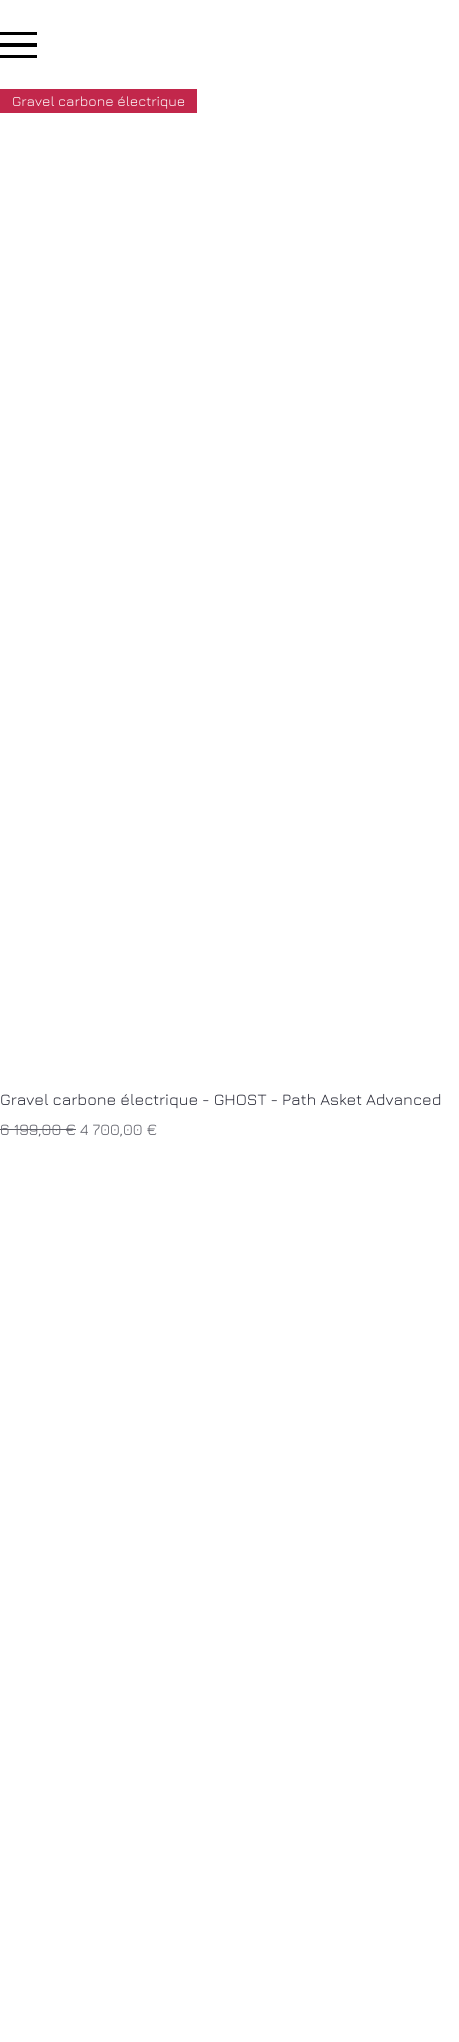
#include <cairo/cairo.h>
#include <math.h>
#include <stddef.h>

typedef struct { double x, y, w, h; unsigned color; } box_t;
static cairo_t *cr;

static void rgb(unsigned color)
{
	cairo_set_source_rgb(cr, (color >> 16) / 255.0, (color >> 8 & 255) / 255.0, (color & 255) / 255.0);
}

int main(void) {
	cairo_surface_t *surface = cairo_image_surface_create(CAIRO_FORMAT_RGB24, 459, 2042);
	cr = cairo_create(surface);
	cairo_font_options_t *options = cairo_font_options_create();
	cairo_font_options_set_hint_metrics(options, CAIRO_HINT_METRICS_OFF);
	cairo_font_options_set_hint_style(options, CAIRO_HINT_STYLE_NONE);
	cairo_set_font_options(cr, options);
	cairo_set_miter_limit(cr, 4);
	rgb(0xffffff);
	cairo_paint(cr);
	{
		static const box_t items[] = {
			{0, 55, 37, 3, 0x000000},
			{0, 32, 37, 3, 0x000000},
			{0, 43, 37, 4, 0x000000},
			{0, 89, 197, 24, 0xc2274b},
			{0, 1129, 76, 1, 0x5e5f68},
		};
		for (size_t i = 0; i < sizeof items / sizeof *items; i++) {
			rgb(items[i].color);
			cairo_rectangle(cr, items[i].x, items[i].y, items[i].w, items[i].h);
			cairo_fill(cr);
		}
	}
	cairo_select_font_face(cr, "Jura", CAIRO_FONT_SLANT_NORMAL, CAIRO_FONT_WEIGHT_NORMAL);
	cairo_set_font_size(cr, 14);
	rgb(0xffffff);
	cairo_move_to(cr, 12, 106);
	cairo_show_text(cr, "Gravel carbone électrique");
	cairo_set_font_size(cr, 16);
	rgb(0x282936);
	cairo_move_to(cr, 0, 1105);
	cairo_show_text(cr, "Gravel carbone électrique - GHOST - Path Asket Advanced");
	rgb(0x5e5f68);
	cairo_move_to(cr, 0, 1135);
	cairo_show_text(cr, "6 199,00 € 4 700,00 €");
	cairo_surface_write_to_png(surface, "page.png");
	cairo_font_options_destroy(options);
	cairo_destroy(cr);
	cairo_surface_destroy(surface);
	return 0;
}
